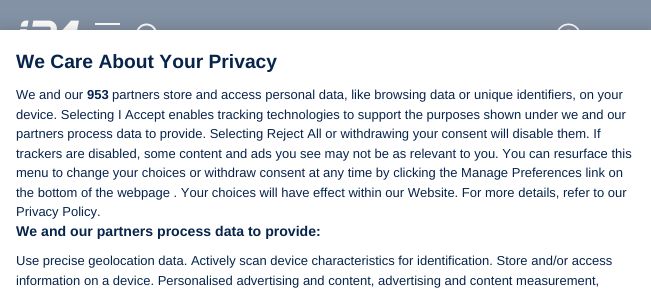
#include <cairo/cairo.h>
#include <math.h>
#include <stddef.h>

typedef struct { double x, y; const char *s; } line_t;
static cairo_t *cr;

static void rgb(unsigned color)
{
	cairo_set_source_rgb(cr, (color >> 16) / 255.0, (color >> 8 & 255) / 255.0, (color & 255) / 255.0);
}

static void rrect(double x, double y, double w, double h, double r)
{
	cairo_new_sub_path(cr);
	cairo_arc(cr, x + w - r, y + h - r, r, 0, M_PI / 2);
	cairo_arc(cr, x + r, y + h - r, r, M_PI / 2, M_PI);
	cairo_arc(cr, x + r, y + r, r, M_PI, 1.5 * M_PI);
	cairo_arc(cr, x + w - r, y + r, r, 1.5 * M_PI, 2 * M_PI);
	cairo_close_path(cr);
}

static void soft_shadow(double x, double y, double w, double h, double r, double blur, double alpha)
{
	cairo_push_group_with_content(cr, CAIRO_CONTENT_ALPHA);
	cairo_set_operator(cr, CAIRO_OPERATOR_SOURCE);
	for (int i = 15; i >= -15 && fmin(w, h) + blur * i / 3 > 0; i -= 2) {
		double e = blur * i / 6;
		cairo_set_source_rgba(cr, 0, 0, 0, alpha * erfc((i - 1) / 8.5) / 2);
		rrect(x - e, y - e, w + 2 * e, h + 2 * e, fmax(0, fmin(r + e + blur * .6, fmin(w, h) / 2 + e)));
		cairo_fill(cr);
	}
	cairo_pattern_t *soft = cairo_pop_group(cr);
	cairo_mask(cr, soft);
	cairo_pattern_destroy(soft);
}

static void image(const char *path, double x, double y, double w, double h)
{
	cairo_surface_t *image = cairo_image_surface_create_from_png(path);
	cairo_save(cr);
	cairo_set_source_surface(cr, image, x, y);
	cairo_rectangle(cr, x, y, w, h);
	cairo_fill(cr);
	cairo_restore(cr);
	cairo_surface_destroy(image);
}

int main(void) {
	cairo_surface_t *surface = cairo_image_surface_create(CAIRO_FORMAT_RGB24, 651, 302);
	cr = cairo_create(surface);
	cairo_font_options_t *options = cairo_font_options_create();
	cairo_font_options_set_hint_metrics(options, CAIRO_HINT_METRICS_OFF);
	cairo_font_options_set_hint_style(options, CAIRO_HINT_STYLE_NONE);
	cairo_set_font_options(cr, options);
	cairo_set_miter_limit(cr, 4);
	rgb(0x8392a5);
	cairo_paint(cr);
	image("img/1.png", 20, 20, 59, 10);
	rgb(0xffffff);
	cairo_rectangle(cr, 95, 23, 25, 2);
	cairo_fill(cr);
	image("img/2.png", 136, 23, 21, 7);
	image("img/3.png", 557, 23, 23, 7);
	rgb(0x000000);
	soft_shadow(0, 30, 651, 272, 0, 9, 0.2);
	rgb(0xffffff);
	cairo_rectangle(cr, 0, 30, 651, 272);
	cairo_fill(cr);
	cairo_select_font_face(cr, "Liberation Sans", CAIRO_FONT_SLANT_NORMAL, CAIRO_FONT_WEIGHT_BOLD);
	cairo_set_font_size(cr, 19.25);
	rgb(0x07244b);
	cairo_move_to(cr, 16, 68);
	cairo_show_text(cr, "We Care About Your Privacy");
	cairo_select_font_face(cr, "Liberation Sans", CAIRO_FONT_SLANT_NORMAL, CAIRO_FONT_WEIGHT_NORMAL);
	cairo_set_font_size(cr, 13);
	cairo_move_to(cr, 16, 99);
	cairo_show_text(cr, "We and our");
	cairo_select_font_face(cr, "Liberation Sans", CAIRO_FONT_SLANT_NORMAL, CAIRO_FONT_WEIGHT_BOLD);
	cairo_move_to(cr, 87, 99);
	cairo_show_text(cr, "953");
	cairo_select_font_face(cr, "Liberation Sans", CAIRO_FONT_SLANT_NORMAL, CAIRO_FONT_WEIGHT_NORMAL);
	{
		static const line_t items[] = {
			{112, 99, "partners store and access personal data, like browsing data or unique identifiers, on your"},
			{16, 119, "device. Selecting I Accept enables tracking technologies to support the purposes shown under we and our"},
			{16, 138, "partners process data to provide. Selecting Reject All or withdrawing your consent will disable them. If"},
			{16, 158, "trackers are disabled, some content and ads you see may not be as relevant to you. You can resurface this"},
			{16, 177, "menu to change your choices or withdraw consent at any time by clicking the Manage Preferences link on"},
			{16, 197, "the bottom of the webpage . Your choices will have effect within our Website. For more details, refer to our"},
			{16, 216, "Privacy Policy."},
		};
		for (size_t i = 0; i < sizeof items / sizeof *items; i++) {
			cairo_move_to(cr, items[i].x, items[i].y);
			cairo_show_text(cr, items[i].s);
		}
	}
	cairo_select_font_face(cr, "Liberation Sans", CAIRO_FONT_SLANT_NORMAL, CAIRO_FONT_WEIGHT_BOLD);
	cairo_set_font_size(cr, 14.1);
	cairo_move_to(cr, 16, 236);
	cairo_show_text(cr, "We and our partners process data to provide:");
	cairo_select_font_face(cr, "Liberation Sans", CAIRO_FONT_SLANT_NORMAL, CAIRO_FONT_WEIGHT_NORMAL);
	cairo_set_font_size(cr, 13);
	cairo_move_to(cr, 16, 265);
	cairo_show_text(cr, "Use precise geolocation data. Actively scan device characteristics for identification. Store and/or access");
	cairo_move_to(cr, 16, 285);
	cairo_show_text(cr, "information on a device. Personalised advertising and content, advertising and content measurement,");
	cairo_surface_write_to_png(surface, "page.png");
	cairo_font_options_destroy(options);
	cairo_destroy(cr);
	cairo_surface_destroy(surface);
	return 0;
}
